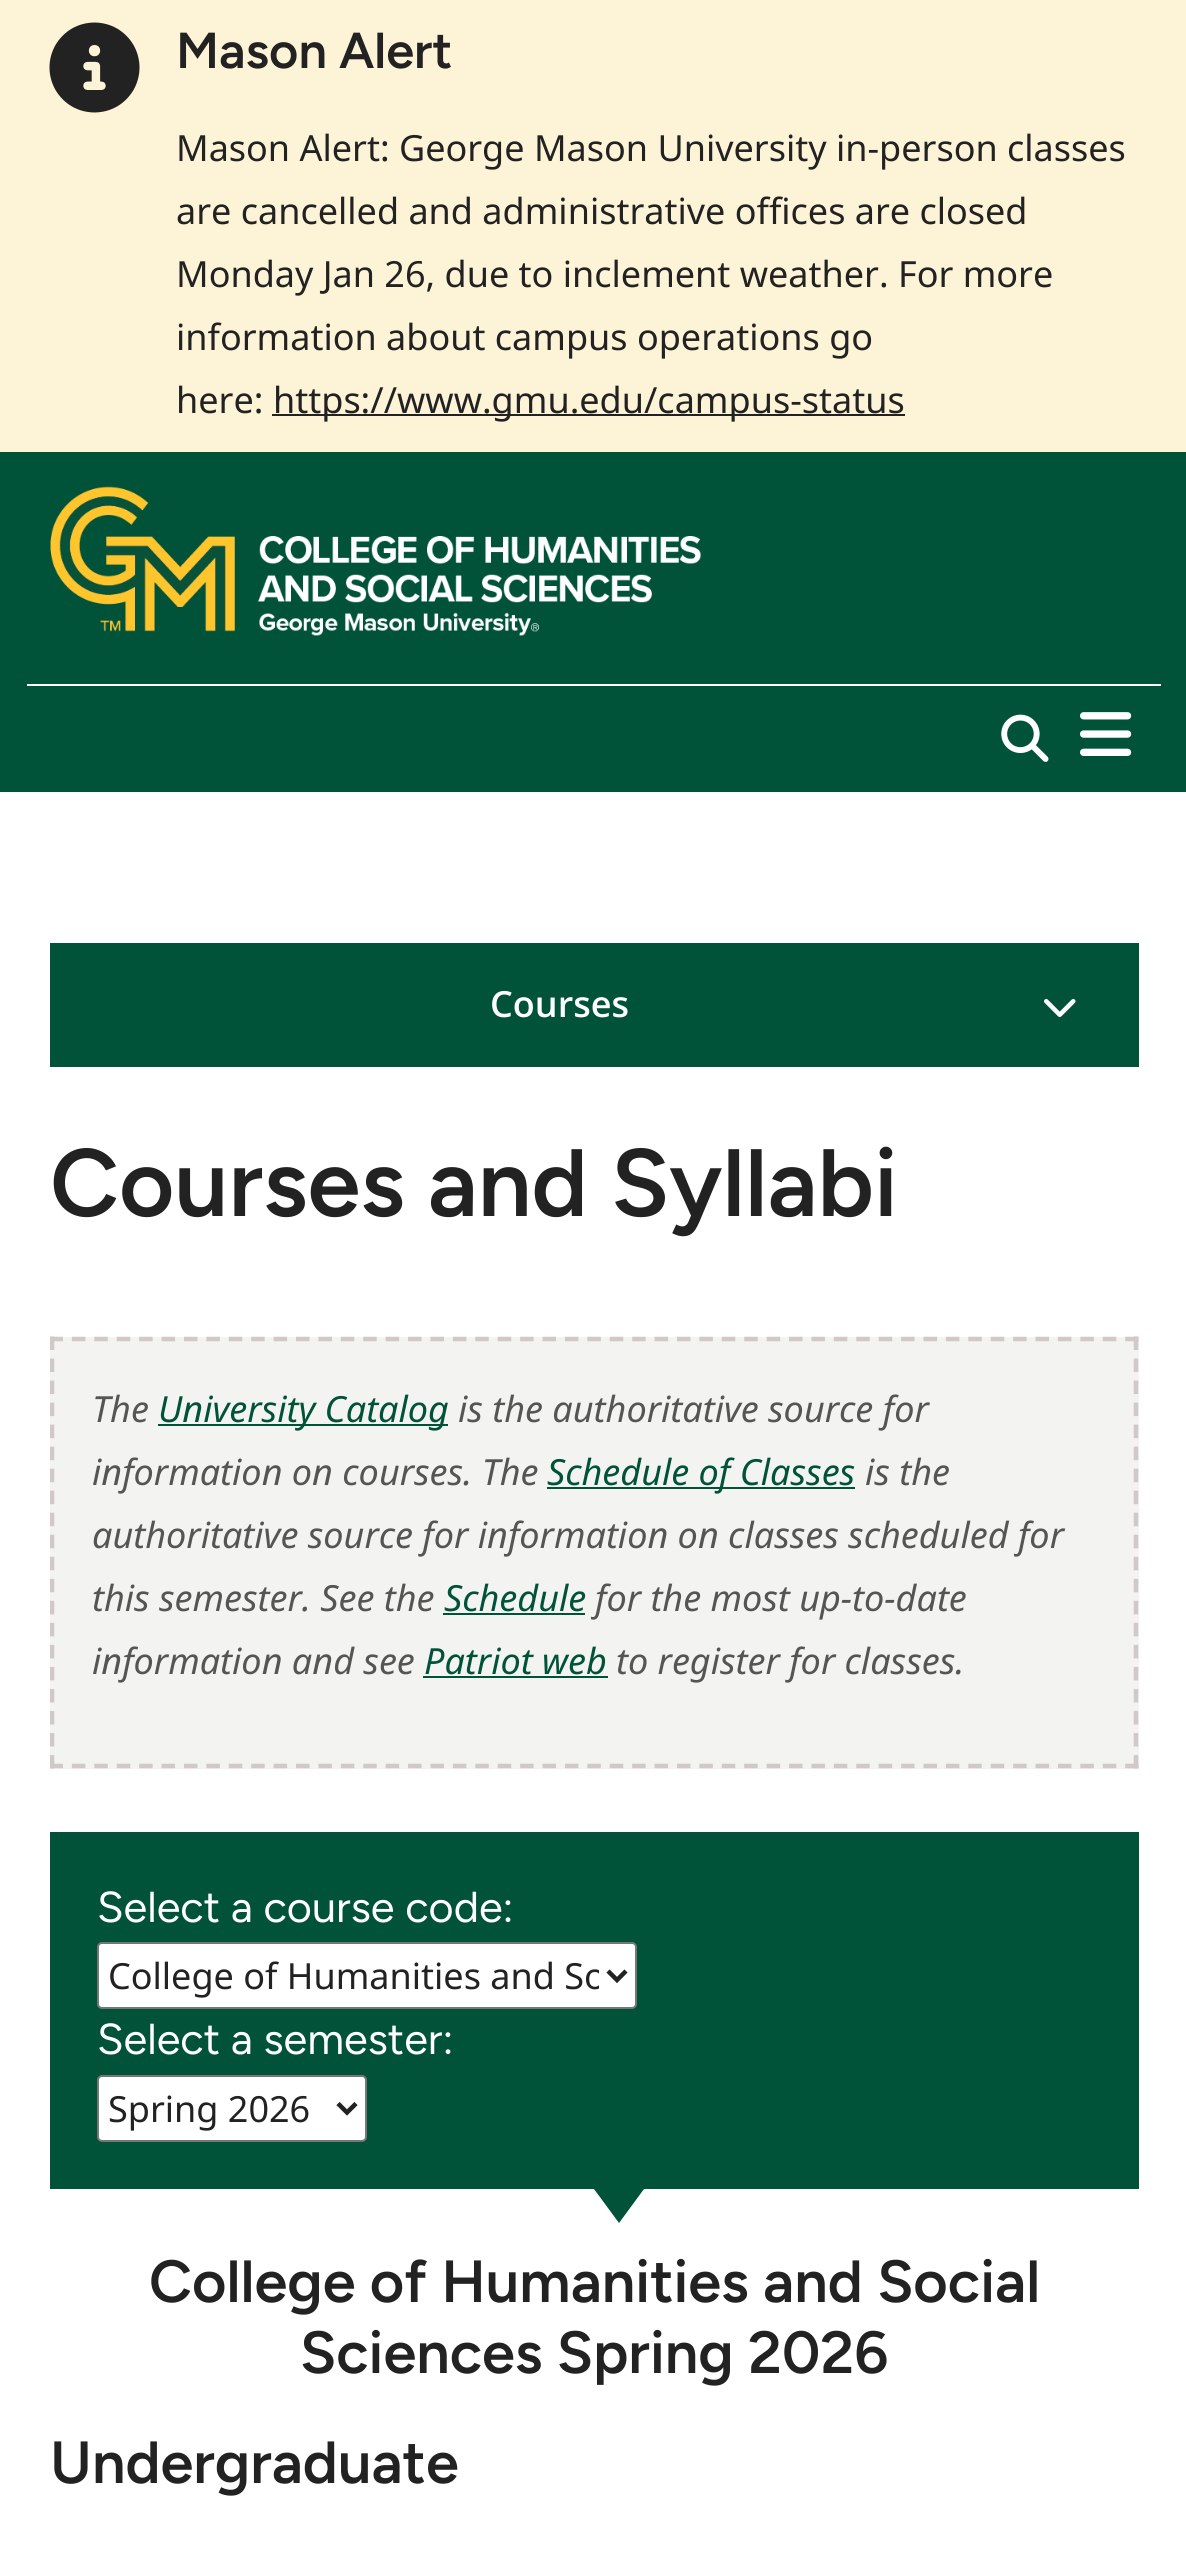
#include <cairo/cairo.h>
#include <math.h>
#include <stddef.h>

typedef struct { double x, y; const char *s; } line_t;
typedef struct { double x, y, w, h; unsigned color; } box_t;
static cairo_t *cr;

static void rgb(unsigned color)
{
	cairo_set_source_rgb(cr, (color >> 16) / 255.0, (color >> 8 & 255) / 255.0, (color & 255) / 255.0);
}

static void rrect(double x, double y, double w, double h, double r)
{
	cairo_new_sub_path(cr);
	cairo_arc(cr, x + w - r, y + h - r, r, 0, M_PI / 2);
	cairo_arc(cr, x + r, y + h - r, r, M_PI / 2, M_PI);
	cairo_arc(cr, x + r, y + r, r, M_PI, 1.5 * M_PI);
	cairo_arc(cr, x + w - r, y + r, r, 1.5 * M_PI, 2 * M_PI);
	cairo_close_path(cr);
}

static void image(const char *path, double x, double y, double w, double h)
{
	cairo_surface_t *image = cairo_image_surface_create_from_png(path);
	cairo_save(cr);
	cairo_set_source_surface(cr, image, x, y);
	cairo_rectangle(cr, x, y, w, h);
	cairo_fill(cr);
	cairo_restore(cr);
	cairo_surface_destroy(image);
}

int main(void) {
	cairo_surface_t *surface = cairo_image_surface_create(CAIRO_FORMAT_RGB24, 1186, 2563);
	cr = cairo_create(surface);
	cairo_font_options_t *options = cairo_font_options_create();
	cairo_font_options_set_hint_metrics(options, CAIRO_HINT_METRICS_OFF);
	cairo_font_options_set_hint_style(options, CAIRO_HINT_STYLE_NONE);
	cairo_set_font_options(cr, options);
	cairo_set_miter_limit(cr, 4);
	rgb(0xffffff);
	cairo_paint(cr);
	rgb(0xfdf3d7);
	cairo_rectangle(cr, 0, 0, 1186, 452);
	cairo_fill(cr);
	image("img/1.png", 49, 22, 91, 91);
	rgb(0x222222);
	cairo_rectangle(cr, 272, 414, 633, 2);
	cairo_fill(cr);
	rgb(0x005239);
	cairo_rectangle(cr, 0, 452, 1186, 340);
	cairo_fill(cr);
	image("img/2.png", 50, 486, 651, 150);
	rgb(0xffffff);
	cairo_rectangle(cr, 27, 684, 1134, 2);
	cairo_fill(cr);
	image("img/3.png", 1001, 714, 48, 48);
	image("img/4.png", 1080, 712, 52, 44);
	rgb(0x005239);
	cairo_rectangle(cr, 50, 943, 1089, 124);
	cairo_fill(cr);
	image("img/5.png", 1044, 999, 32, 18);
	rgb(0xf3f3f1);
	cairo_rectangle(cr, 50, 1337, 1089, 432);
	cairo_fill(cr);
	cairo_save(cr);
	cairo_rectangle(cr, 50, 1103, 1089, 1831);
	cairo_clip(cr);
	cairo_new_path(cr);
	cairo_move_to(cr, 49.5, 1339);
	cairo_line_to(cr, 1138.5, 1339);
	rgb(0xd1c9c9);
	cairo_set_line_width(cr, 4.5);
	cairo_set_dash(cr, (double[]){13.5, 8.91}, 2, 0);
	cairo_stroke(cr);
	cairo_restore(cr);
	cairo_new_path(cr);
	cairo_move_to(cr, 1136, 1336.5);
	cairo_line_to(cr, 1136, 1768.5);
	rgb(0xd1c9c9);
	cairo_set_line_width(cr, 4.5);
	cairo_set_dash(cr, (double[]){13.5, 8.53}, 2, 0);
	cairo_stroke(cr);
	cairo_save(cr);
	cairo_rectangle(cr, 50, 1103, 1089, 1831);
	cairo_clip(cr);
	cairo_new_path(cr);
	cairo_move_to(cr, 49.5, 1766);
	cairo_line_to(cr, 1138.5, 1766);
	cairo_set_dash(cr, (double[]){13.5, 8.91}, 2, 0);
	cairo_stroke(cr);
	cairo_new_path(cr);
	cairo_move_to(cr, 52, 1336.5);
	cairo_line_to(cr, 52, 1768.5);
	cairo_set_dash(cr, (double[]){13.5, 8.53}, 2, 0);
	cairo_stroke(cr);
	cairo_restore(cr);
	{
		static const box_t items[] = {
			{158, 1424, 290, 2, 0x005239},
			{547, 1487, 308, 2, 0x005239},
			{443, 1613, 142, 2, 0x005239},
			{423, 1676, 185, 2, 0x005239},
			{50, 1832, 1089, 357, 0x005239},
		};
		for (size_t i = 0; i < sizeof items / sizeof *items; i++) {
			rgb(items[i].color);
			cairo_rectangle(cr, items[i].x, items[i].y, items[i].w, items[i].h);
			cairo_fill(cr);
		}
	}
	rgb(0xffffff);
	rrect(98, 1943, 538, 65, 4);
	cairo_fill_preserve(cr);
	rgb(0x767676);
	cairo_set_line_width(cr, 2);
	cairo_set_dash(cr, NULL, 0, 0);
	cairo_stroke(cr);
	cairo_new_path(cr);
	cairo_move_to(cr, 608, 1971);
	cairo_line_to(cr, 617, 1980);
	cairo_line_to(cr, 626, 1971);
	rgb(0x222222);
	cairo_set_line_width(cr, 4.5);
	cairo_stroke(cr);
	rgb(0xffffff);
	rrect(98, 2076, 268, 65, 4);
	cairo_fill_preserve(cr);
	rgb(0x767676);
	cairo_set_line_width(cr, 2);
	cairo_stroke(cr);
	cairo_new_path(cr);
	cairo_move_to(cr, 338, 2103.5);
	cairo_line_to(cr, 347, 2112.5);
	cairo_line_to(cr, 356, 2103.5);
	rgb(0x222222);
	cairo_set_line_width(cr, 4.5);
	cairo_stroke(cr);
	rgb(0x005239);
	cairo_new_path(cr);
	cairo_move_to(cr, 594, 2189);
	cairo_line_to(cr, 644, 2189);
	cairo_line_to(cr, 619, 2223);
	cairo_close_path(cr);
	cairo_fill(cr);
	cairo_select_font_face(cr, "Figtree SemiBold", CAIRO_FONT_SLANT_NORMAL, CAIRO_FONT_WEIGHT_NORMAL);
	cairo_set_font_size(cr, 50.5);
	rgb(0x222222);
	cairo_move_to(cr, 176, 68);
	cairo_show_text(cr, "Mason Alert");
	cairo_select_font_face(cr, "Noto Sans", CAIRO_FONT_SLANT_NORMAL, CAIRO_FONT_WEIGHT_NORMAL);
	cairo_set_font_size(cr, 36);
	{
		static const line_t items[] = {
			{176, 161, "Mason Alert: George Mason University in-person classes"},
			{176, 224, "are cancelled and administrative offices are closed"},
			{176, 287, "Monday Jan 26, due to inclement weather. For more"},
			{176, 350, "information about campus operations go"},
			{176, 413, "here:"},
			{273, 413, "https://www.gmu.edu/campus-status"},
		};
		for (size_t i = 0; i < sizeof items / sizeof *items; i++) {
			cairo_move_to(cr, items[i].x, items[i].y);
			cairo_show_text(cr, items[i].s);
		}
	}
	cairo_select_font_face(cr, "Open Sans SemiBold", CAIRO_FONT_SLANT_NORMAL, CAIRO_FONT_WEIGHT_NORMAL);
	rgb(0xffffff);
	cairo_move_to(cr, 490, 1017);
	cairo_show_text(cr, "Courses");
	cairo_select_font_face(cr, "Figtree SemiBold", CAIRO_FONT_SLANT_NORMAL, CAIRO_FONT_WEIGHT_NORMAL);
	cairo_set_font_size(cr, 95.5);
	rgb(0x222222);
	cairo_move_to(cr, 50, 1216);
	cairo_show_text(cr, "Courses and Syllabi");
	cairo_select_font_face(cr, "Noto Sans", CAIRO_FONT_SLANT_ITALIC, CAIRO_FONT_WEIGHT_NORMAL);
	cairo_set_font_size(cr, 36);
	rgb(0x555553);
	cairo_move_to(cr, 92, 1422);
	cairo_show_text(cr, "The");
	rgb(0x005239);
	cairo_move_to(cr, 158, 1422);
	cairo_show_text(cr, "University Catalog");
	rgb(0x555553);
	cairo_move_to(cr, 458, 1422);
	cairo_show_text(cr, "is the authoritative source for");
	cairo_move_to(cr, 92, 1485);
	cairo_show_text(cr, "information on courses. The");
	rgb(0x005239);
	cairo_move_to(cr, 547, 1485);
	cairo_show_text(cr, "Schedule of Classes");
	rgb(0x555553);
	{
		static const line_t items[] = {
			{865, 1485, "is the"},
			{92, 1548, "authoritative source for information on classes scheduled for"},
			{92, 1611, "this semester. See the"},
		};
		for (size_t i = 0; i < sizeof items / sizeof *items; i++) {
			cairo_move_to(cr, items[i].x, items[i].y);
			cairo_show_text(cr, items[i].s);
		}
	}
	rgb(0x005239);
	cairo_move_to(cr, 444, 1611);
	cairo_show_text(cr, "Schedule");
	rgb(0x555553);
	cairo_move_to(cr, 595, 1611);
	cairo_show_text(cr, "for the most up-to-date");
	cairo_move_to(cr, 92, 1674);
	cairo_show_text(cr, "information and see");
	rgb(0x005239);
	cairo_move_to(cr, 424, 1674);
	cairo_show_text(cr, "Patriot web");
	rgb(0x555553);
	cairo_move_to(cr, 616, 1674);
	cairo_show_text(cr, "to register for classes.");
	cairo_select_font_face(cr, "Figtree", CAIRO_FONT_SLANT_NORMAL, CAIRO_FONT_WEIGHT_NORMAL);
	cairo_set_font_size(cr, 43.25);
	rgb(0xffffff);
	cairo_move_to(cr, 97, 1922);
	cairo_show_text(cr, "Select a course code:");
	cairo_save(cr);
	cairo_rectangle(cr, 108, 1949, 491, 54);
	cairo_clip(cr);
	cairo_select_font_face(cr, "Noto Sans", CAIRO_FONT_SLANT_NORMAL, CAIRO_FONT_WEIGHT_NORMAL);
	cairo_set_font_size(cr, 36);
	rgb(0x222222);
	cairo_move_to(cr, 108, 1989);
	cairo_show_text(cr, "College of Humanities and So");
	cairo_restore(cr);
	cairo_move_to(cr, 97, 2054);
	cairo_show_text(cr, "Select a semester:");
	cairo_select_font_face(cr, "Noto Sans", CAIRO_FONT_SLANT_NORMAL, CAIRO_FONT_WEIGHT_NORMAL);
	cairo_set_font_size(cr, 36);
	rgb(0x222222);
	cairo_move_to(cr, 108, 2122);
	cairo_show_text(cr, "Spring 2026");
	cairo_select_font_face(cr, "Figtree SemiBold", CAIRO_FONT_SLANT_NORMAL, CAIRO_FONT_WEIGHT_NORMAL);
	cairo_set_font_size(cr, 59.4);
	{
		static const line_t items[] = {
			{149, 2302, "College of Humanities and Social"},
			{300, 2373, "Sciences Spring 2026"},
			{50, 2483, "Undergraduate"},
		};
		for (size_t i = 0; i < sizeof items / sizeof *items; i++) {
			cairo_move_to(cr, items[i].x, items[i].y);
			cairo_show_text(cr, items[i].s);
		}
	}
	cairo_surface_write_to_png(surface, "page.png");
	cairo_font_options_destroy(options);
	cairo_destroy(cr);
	cairo_surface_destroy(surface);
	return 0;
}
